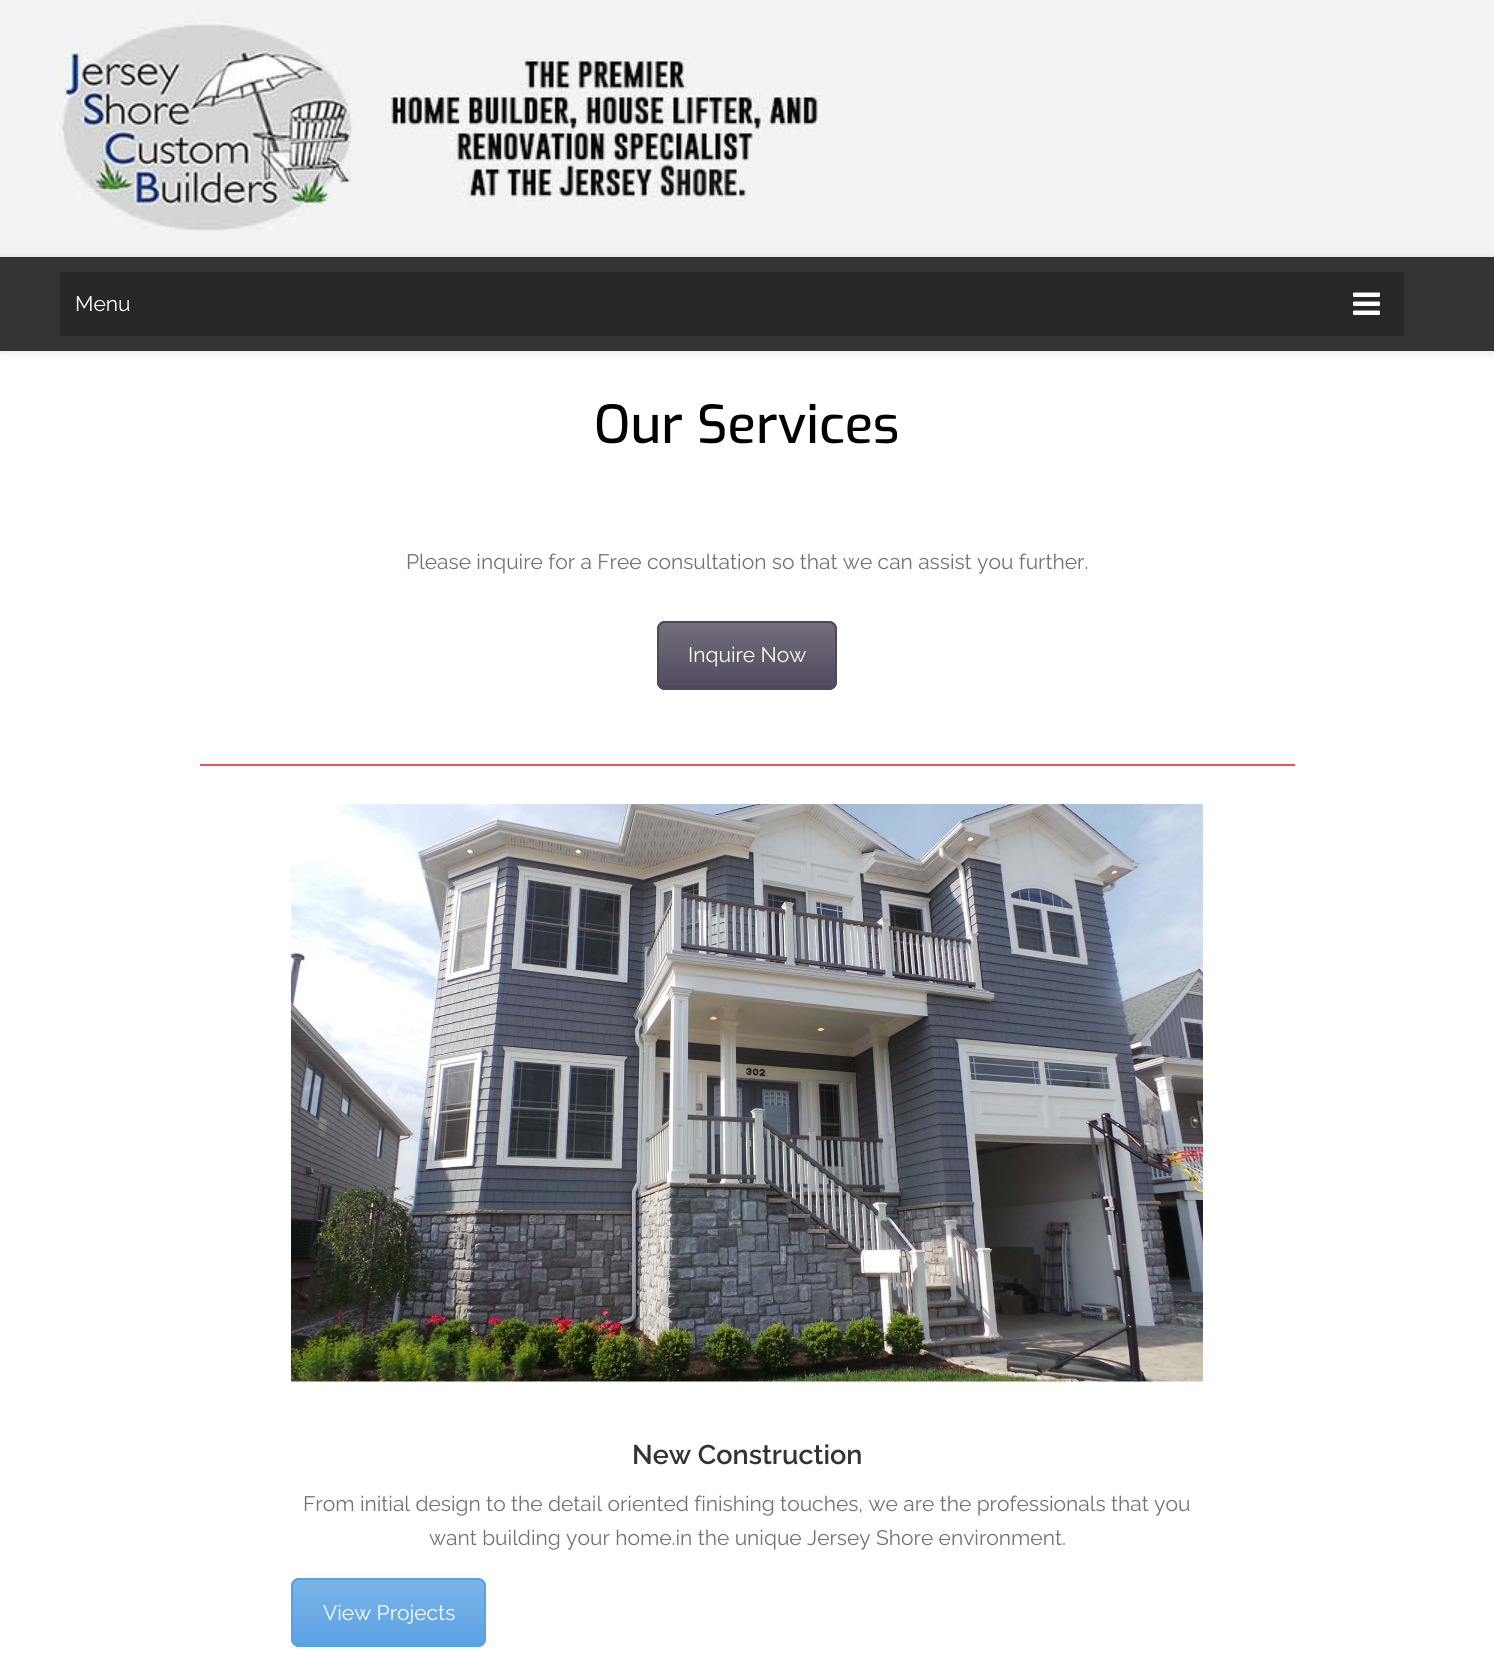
#include <cairo/cairo.h>
#include <math.h>
#include <stddef.h>

static cairo_t *cr;

static void rgb(unsigned color)
{
	cairo_set_source_rgb(cr, (color >> 16) / 255.0, (color >> 8 & 255) / 255.0, (color & 255) / 255.0);
}

static void rrect(double x, double y, double w, double h, double r)
{
	cairo_new_sub_path(cr);
	cairo_arc(cr, x + w - r, y + h - r, r, 0, M_PI / 2);
	cairo_arc(cr, x + r, y + h - r, r, M_PI / 2, M_PI);
	cairo_arc(cr, x + r, y + r, r, M_PI, 1.5 * M_PI);
	cairo_arc(cr, x + w - r, y + r, r, 1.5 * M_PI, 2 * M_PI);
	cairo_close_path(cr);
}

static void soft_shadow(double x, double y, double w, double h, double r, double blur, double alpha)
{
	cairo_push_group_with_content(cr, CAIRO_CONTENT_ALPHA);
	cairo_set_operator(cr, CAIRO_OPERATOR_SOURCE);
	for (int i = 15; i >= -15 && fmin(w, h) + blur * i / 3 > 0; i -= 2) {
		double e = blur * i / 6;
		cairo_set_source_rgba(cr, 0, 0, 0, alpha * erfc((i - 1) / 8.5) / 2);
		rrect(x - e, y - e, w + 2 * e, h + 2 * e, fmax(0, fmin(r + e + blur * .6, fmin(w, h) / 2 + e)));
		cairo_fill(cr);
	}
	cairo_pattern_t *soft = cairo_pop_group(cr);
	cairo_mask(cr, soft);
	cairo_pattern_destroy(soft);
}

static void image(const char *path, double x, double y, double w, double h)
{
	cairo_surface_t *image = cairo_image_surface_create_from_png(path);
	cairo_save(cr);
	cairo_set_source_surface(cr, image, x, y);
	cairo_rectangle(cr, x, y, w, h);
	cairo_fill(cr);
	cairo_restore(cr);
	cairo_surface_destroy(image);
}

int main(void) {
	cairo_surface_t *surface = cairo_image_surface_create(CAIRO_FORMAT_RGB24, 1494, 1679);
	cr = cairo_create(surface);
	cairo_font_options_t *options = cairo_font_options_create();
	cairo_font_options_set_hint_metrics(options, CAIRO_HINT_METRICS_OFF);
	cairo_font_options_set_hint_style(options, CAIRO_HINT_STYLE_NONE);
	cairo_set_font_options(cr, options);
	cairo_set_miter_limit(cr, 4);
	cairo_pattern_t *gradient;
	rgb(0xffffff);
	cairo_paint(cr);
	rgb(0xf3f3f3);
	cairo_rectangle(cr, 0, 0, 1494, 257);
	cairo_fill(cr);
	image("img/1.png", 52, 15, 301, 216);
	image("img/2.png", 388, 57, 433, 145);
	rgb(0x000000);
	soft_shadow(0, 258, 1494, 95, 0, 4, 0.1);
	rgb(0x333333);
	cairo_rectangle(cr, 0, 257, 1494, 94);
	cairo_fill(cr);
	rgb(0x272727);
	cairo_rectangle(cr, 60, 272, 1344, 64);
	cairo_fill(cr);
	image("img/3.png", 1353, 292, 27, 23);
	rgb(0x50485b);
	rrect(657, 621, 180, 69, 8);
	cairo_fill(cr);
	cairo_save(cr);
	rrect(657, 621, 180, 69, 8);
	cairo_clip(cr);
	gradient = cairo_pattern_create_linear(747, 623, 747, 689);
	cairo_pattern_add_color_stop_rgba(gradient, 0, 1, 1, 1, 0.2);
	cairo_pattern_add_color_stop_rgba(gradient, 1, 1, 1, 1, 0.01);
	cairo_set_source(cr, gradient);
	cairo_pattern_destroy(gradient);
	cairo_rectangle(cr, 657, 623, 180, 62);
	cairo_fill(cr);
	cairo_restore(cr);
	rrect(658, 622, 178, 67, 7);
	cairo_stroke(cr);
	rgb(0xf4524d);
	cairo_rectangle(cr, 200, 764, 1095, 2);
	cairo_fill(cr);
	image("img/4.png", 291, 804, 912, 578);
	rgb(0x5aa1e3);
	rrect(291, 1578, 195, 69, 8);
	cairo_fill(cr);
	cairo_save(cr);
	rrect(291, 1578, 195, 69, 8);
	cairo_clip(cr);
	gradient = cairo_pattern_create_linear(389, 1580, 389, 1646);
	cairo_pattern_add_color_stop_rgba(gradient, 0, 1, 1, 1, 0.2);
	cairo_pattern_add_color_stop_rgba(gradient, 1, 1, 1, 1, 0.01);
	cairo_set_source(cr, gradient);
	cairo_pattern_destroy(gradient);
	cairo_rectangle(cr, 291, 1580, 195, 62);
	cairo_fill(cr);
	cairo_restore(cr);
	rrect(292, 1579, 193, 67, 7);
	cairo_stroke(cr);
	cairo_select_font_face(cr, "Raleway", CAIRO_FONT_SLANT_NORMAL, CAIRO_FONT_WEIGHT_NORMAL);
	cairo_set_font_size(cr, 21);
	rgb(0xffffff);
	cairo_move_to(cr, 75, 311);
	cairo_show_text(cr, "Menu");
	cairo_select_font_face(cr, "Exo Medium", CAIRO_FONT_SLANT_NORMAL, CAIRO_FONT_WEIGHT_NORMAL);
	cairo_set_font_size(cr, 52.5);
	rgb(0x000000);
	cairo_move_to(cr, 594, 443);
	cairo_show_text(cr, "Our Services");
	cairo_select_font_face(cr, "Raleway", CAIRO_FONT_SLANT_NORMAL, CAIRO_FONT_WEIGHT_NORMAL);
	cairo_set_font_size(cr, 21);
	rgb(0x727272);
	cairo_move_to(cr, 406, 569);
	cairo_show_text(cr, "Please inquire for a Free consultation so that we can assist you further.");
	rgb(0xffffff);
	cairo_move_to(cr, 688, 662);
	cairo_show_text(cr, "Inquire Now");
	cairo_select_font_face(cr, "Raleway SemiBold", CAIRO_FONT_SLANT_NORMAL, CAIRO_FONT_WEIGHT_NORMAL);
	cairo_set_font_size(cr, 27);
	rgb(0x333333);
	cairo_move_to(cr, 632, 1464);
	cairo_show_text(cr, "New Construction");
	cairo_select_font_face(cr, "Raleway", CAIRO_FONT_SLANT_NORMAL, CAIRO_FONT_WEIGHT_NORMAL);
	cairo_set_font_size(cr, 21);
	rgb(0x727272);
	cairo_move_to(cr, 303, 1511);
	cairo_show_text(cr, "From initial design to the detail oriented finishing touches, we are the professionals that you");
	cairo_move_to(cr, 429, 1545);
	cairo_show_text(cr, "want building your home.in the unique Jersey Shore environment.");
	rgb(0xffffff);
	cairo_move_to(cr, 323, 1620);
	cairo_show_text(cr, "View Projects");
	cairo_surface_write_to_png(surface, "page.png");
	cairo_font_options_destroy(options);
	cairo_destroy(cr);
	cairo_surface_destroy(surface);
	return 0;
}
